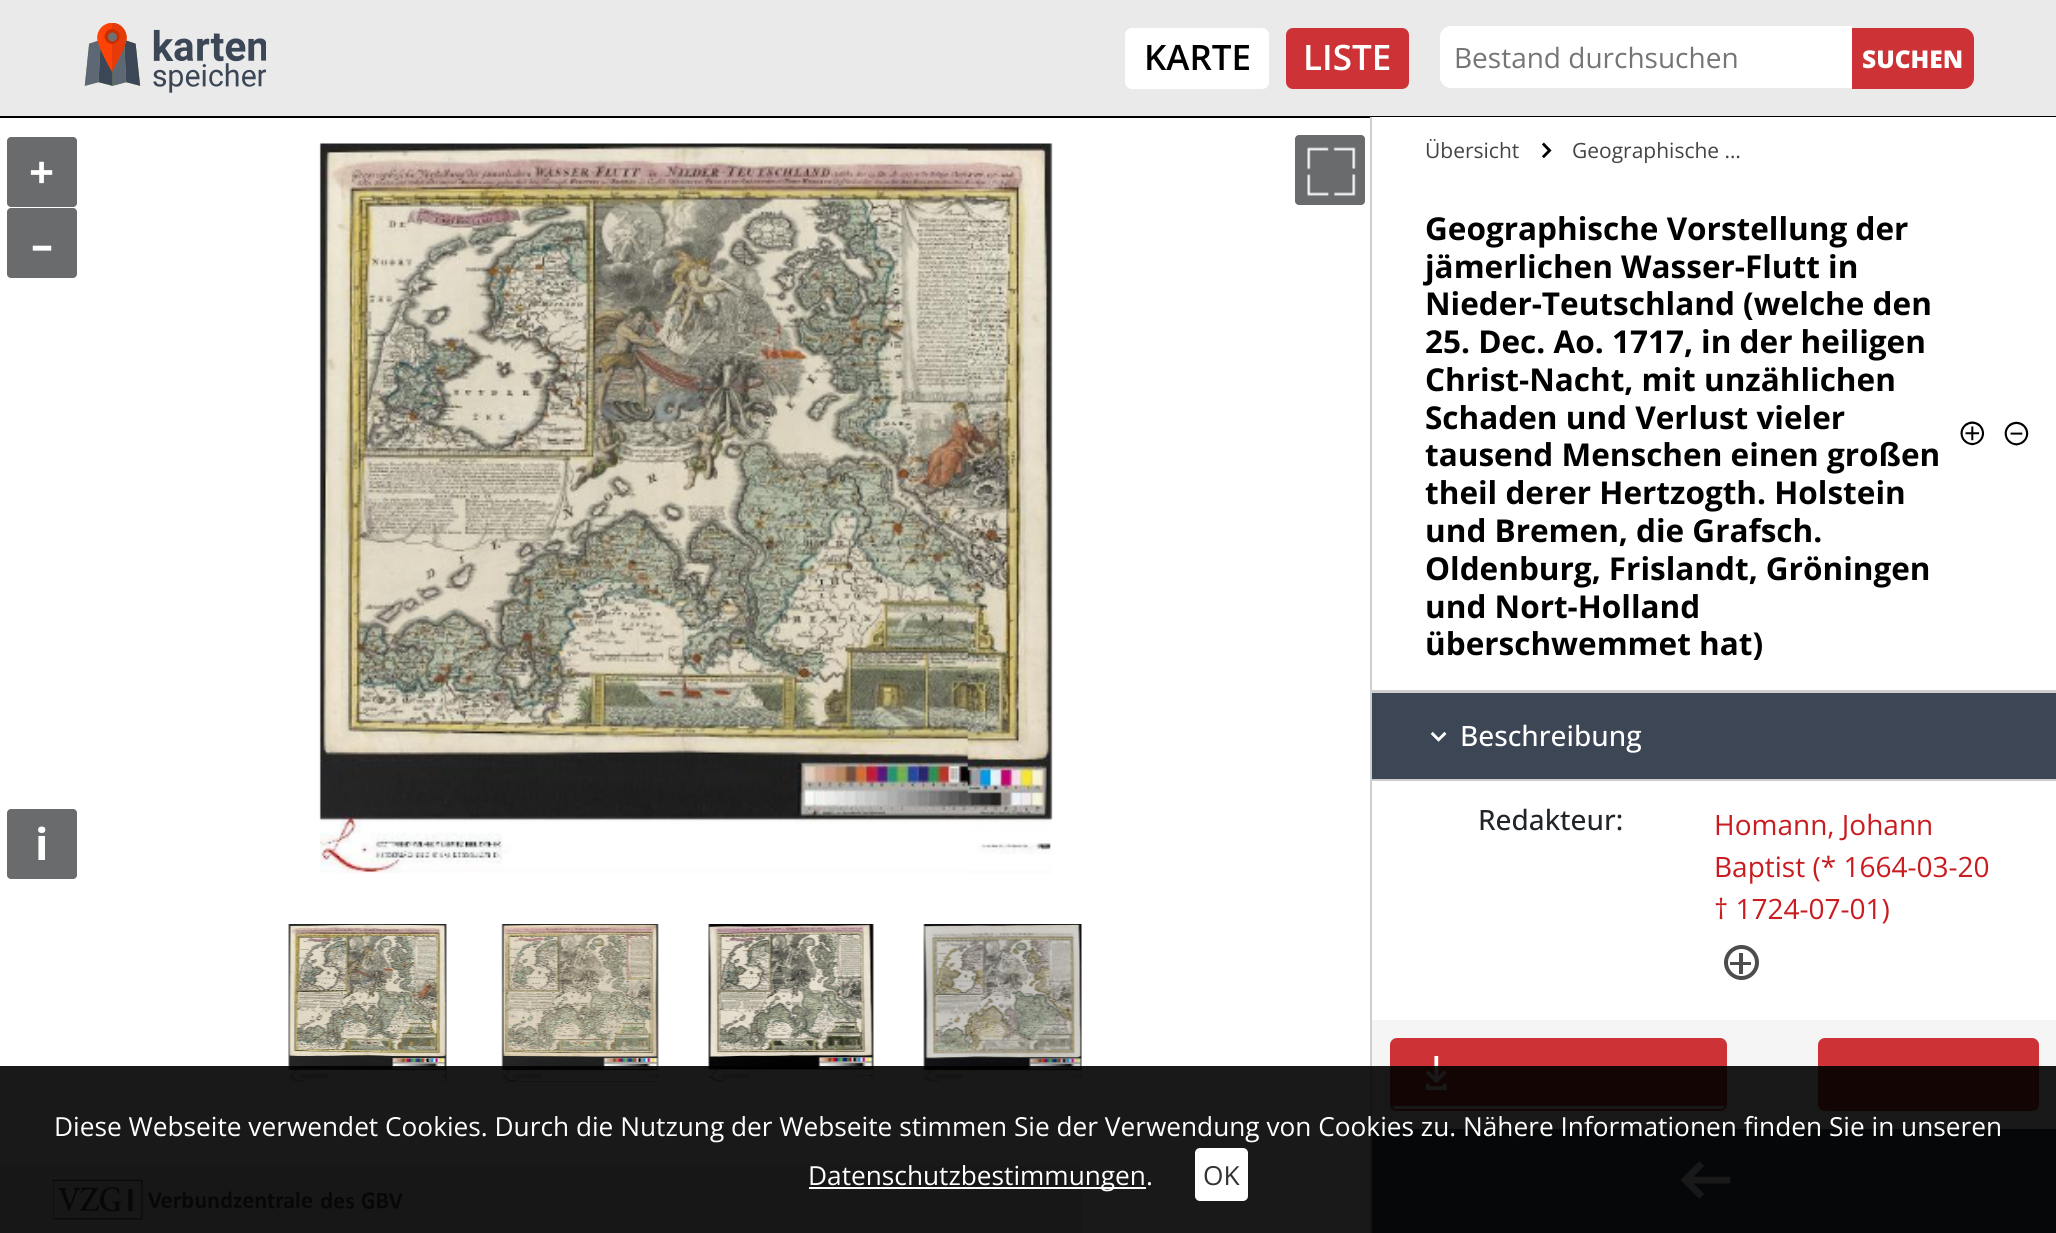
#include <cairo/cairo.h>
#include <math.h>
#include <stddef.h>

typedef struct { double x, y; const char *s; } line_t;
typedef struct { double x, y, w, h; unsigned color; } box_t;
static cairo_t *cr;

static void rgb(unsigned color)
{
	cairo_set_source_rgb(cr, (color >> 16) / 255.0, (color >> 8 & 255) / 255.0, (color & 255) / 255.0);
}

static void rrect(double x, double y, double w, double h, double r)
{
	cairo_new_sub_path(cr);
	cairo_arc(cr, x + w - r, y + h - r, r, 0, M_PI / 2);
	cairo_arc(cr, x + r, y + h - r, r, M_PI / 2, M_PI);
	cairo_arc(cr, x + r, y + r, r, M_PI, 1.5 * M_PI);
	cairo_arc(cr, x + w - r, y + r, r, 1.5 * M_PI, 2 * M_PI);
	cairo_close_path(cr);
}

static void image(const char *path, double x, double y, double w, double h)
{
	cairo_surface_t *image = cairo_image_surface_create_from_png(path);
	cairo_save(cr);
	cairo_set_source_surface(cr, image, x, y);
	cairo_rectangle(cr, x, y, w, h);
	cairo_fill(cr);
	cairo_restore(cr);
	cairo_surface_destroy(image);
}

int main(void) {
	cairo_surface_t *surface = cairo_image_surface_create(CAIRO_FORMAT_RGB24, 2056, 1233);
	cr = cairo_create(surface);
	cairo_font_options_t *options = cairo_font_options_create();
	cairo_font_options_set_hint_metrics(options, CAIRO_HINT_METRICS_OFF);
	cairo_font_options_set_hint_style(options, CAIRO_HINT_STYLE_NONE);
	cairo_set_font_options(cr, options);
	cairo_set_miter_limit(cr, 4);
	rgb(0xffffff);
	cairo_paint(cr);
	rgb(0xeaeaea);
	cairo_rectangle(cr, 0, 0, 2056, 116);
	cairo_fill(cr);
	rgb(0x000000);
	cairo_rectangle(cr, 0, 116, 2056, 2);
	cairo_fill(cr);
	image("img/1.png", 84, 23, 182, 70);
	rgb(0xffffff);
	rrect(1125, 28, 144, 61, 7);
	cairo_fill(cr);
	rgb(0xcd3336);
	rrect(1286, 28, 123, 61, 7);
	cairo_fill(cr);
	rgb(0xffffff);
	cairo_new_path(cr);
	cairo_move_to(cr, 1451, 26);
	cairo_line_to(cr, 1852, 26);
	cairo_line_to(cr, 1852, 88);
	cairo_line_to(cr, 1451, 88);
	cairo_curve_to(cr, 1445, 88, 1440, 83, 1440, 77);
	cairo_line_to(cr, 1440, 37);
	cairo_curve_to(cr, 1440, 31, 1445, 26, 1451, 26);
	cairo_close_path(cr);
	cairo_fill(cr);
	rgb(0xcd3336);
	cairo_new_path(cr);
	cairo_move_to(cr, 1852, 28);
	cairo_line_to(cr, 1963, 28);
	cairo_curve_to(cr, 1969, 28, 1974, 33, 1974, 39);
	cairo_line_to(cr, 1974, 78);
	cairo_curve_to(cr, 1974, 84, 1969, 89, 1963, 89);
	cairo_line_to(cr, 1852, 89);
	cairo_close_path(cr);
	cairo_fill(cr);
	rgb(0x696b6c);
	rrect(7, 137, 70, 70, 4);
	cairo_fill(cr);
	rrect(7, 208, 70, 70, 4);
	cairo_fill(cr);
	rrect(7, 809, 70, 70, 4);
	cairo_fill(cr);
	image("img/2.png", 319, 143, 734, 731);
	rrect(1295, 135, 70, 70, 4);
	cairo_fill(cr);
	image("img/3.png", 1307, 147, 49, 49);
	image("img/4.png", 288, 924, 159, 158);
	image("img/5.png", 501, 924, 158, 158);
	image("img/6.png", 708, 924, 166, 158);
	image("img/7.png", 923, 924, 159, 158);
	{
		static const box_t items[] = {
			{1372, 1020, 684, 109, 0xf5f5f5},
			{1370, 117, 2, 1116, 0xcecece},
			{1372, 117, 684, 1, 0xffffff},
		};
		for (size_t i = 0; i < sizeof items / sizeof *items; i++) {
			rgb(items[i].color);
			cairo_rectangle(cr, items[i].x, items[i].y, items[i].w, items[i].h);
			cairo_fill(cr);
		}
	}
	image("img/8.png", 1542, 142, 10, 17);
	rgb(0xcecece);
	cairo_rectangle(cr, 1372, 690, 684, 3);
	cairo_fill(cr);
	image("img/9.png", 1960, 421, 25, 25);
	image("img/10.png", 2004, 421, 25, 25);
	rgb(0x3d4655);
	cairo_rectangle(cr, 1372, 693, 684, 86);
	cairo_fill(cr);
	rgb(0xcecece);
	cairo_rectangle(cr, 1372, 779, 684, 2);
	cairo_fill(cr);
	image("img/11.png", 1430, 731, 17, 11);
	cairo_arc(cr, 1741.5, 962.5, 15.5, 0, 2 * M_PI);
	rgb(0x4d4d4d);
	cairo_set_line_width(cr, 4);
	cairo_stroke(cr);
	cairo_rectangle(cr, 1739, 953, 4, 21);
	cairo_fill(cr);
	cairo_rectangle(cr, 1730, 962, 21, 3);
	cairo_fill(cr);
	rrect(1391, 1039, 335, 71, 6);
	rgb(0xcd3336);
	cairo_set_line_width(cr, 2);
	cairo_stroke(cr);
	cairo_save(cr);
	rrect(1391, 1040, 335, 70, 5);
	cairo_clip(cr);
	cairo_new_path(cr);
	cairo_move_to(cr, 1396, 1040);
	cairo_line_to(cr, 1721, 1040);
	cairo_curve_to(cr, 1724, 1040, 1726, 1042, 1726, 1045);
	cairo_line_to(cr, 1726, 1106);
	cairo_line_to(cr, 1391, 1106);
	cairo_line_to(cr, 1391, 1045);
	cairo_curve_to(cr, 1391, 1042, 1393, 1040, 1396, 1040);
	cairo_close_path(cr);
	cairo_fill(cr);
	cairo_restore(cr);
	image("img/12.png", 1425, 1056, 22, 35);
	rrect(1819, 1039, 219, 71, 6);
	cairo_stroke(cr);
	cairo_rectangle(cr, 1820, 1040, 217, 70);
	cairo_fill(cr);
	rgb(0x3d4655);
	cairo_rectangle(cr, 1372, 1129, 684, 104);
	cairo_fill(cr);
	image("img/13.png", 1680, 1161, 51, 38);
	rgb(0xeaeaea);
	cairo_rectangle(cr, 0, 1166, 1082, 67);
	cairo_fill(cr);
	image("img/14.png", 53, 1179, 350, 41);
	cairo_set_source_rgba(cr, 0, 0, 0, 0.9);
	cairo_rectangle(cr, 0, 1066, 2056, 167);
	cairo_fill(cr);
	rgb(0xffffff);
	cairo_rectangle(cr, 809, 1187, 337, 2);
	cairo_fill(cr);
	rrect(1195, 1148, 53, 53, 5);
	cairo_fill(cr);
	cairo_select_font_face(cr, "Open Sans SemiBold", CAIRO_FONT_SLANT_NORMAL, CAIRO_FONT_WEIGHT_NORMAL);
	cairo_set_font_size(cr, 35);
	rgb(0x000000);
	cairo_move_to(cr, 1144, 70);
	cairo_show_text(cr, "KARTE");
	rgb(0xffffff);
	cairo_move_to(cr, 1303, 70);
	cairo_show_text(cr, "LISTE");
	cairo_select_font_face(cr, "Open Sans", CAIRO_FONT_SLANT_NORMAL, CAIRO_FONT_WEIGHT_NORMAL);
	cairo_set_font_size(cr, 28);
	rgb(0x757575);
	cairo_move_to(cr, 1454, 68);
	cairo_show_text(cr, "Bestand durchsuchen");
	cairo_select_font_face(cr, "Open Sans ExtraBold", CAIRO_FONT_SLANT_NORMAL, CAIRO_FONT_WEIGHT_NORMAL);
	cairo_set_font_size(cr, 24.5);
	rgb(0xffffff);
	cairo_move_to(cr, 1862, 68);
	cairo_show_text(cr, "SUCHEN");
	cairo_select_font_face(cr, "Open Sans", CAIRO_FONT_SLANT_NORMAL, CAIRO_FONT_WEIGHT_BOLD);
	cairo_set_font_size(cr, 44);
	{
		static const line_t items[] = {
			{29, 188, "+"},
			{31, 260, "–"},
			{35, 860, "i"},
		};
		for (size_t i = 0; i < sizeof items / sizeof *items; i++) {
			cairo_move_to(cr, items[i].x, items[i].y);
			cairo_show_text(cr, items[i].s);
		}
	}
	cairo_select_font_face(cr, "Open Sans", CAIRO_FONT_SLANT_NORMAL, CAIRO_FONT_WEIGHT_NORMAL);
	cairo_set_font_size(cr, 21);
	rgb(0x444444);
	cairo_move_to(cr, 1425, 158);
	cairo_show_text(cr, "Übersicht");
	cairo_move_to(cr, 1572, 158);
	cairo_show_text(cr, "Geographische …");
	cairo_select_font_face(cr, "Open Sans", CAIRO_FONT_SLANT_NORMAL, CAIRO_FONT_WEIGHT_BOLD);
	cairo_set_font_size(cr, 31.5);
	rgb(0x000000);
	{
		static const line_t items[] = {
			{1425, 240, "Geographische Vorstellung der"},
			{1425, 278, "jämerlichen Wasser-Flutt in"},
			{1425, 315, "Nieder-Teutschland (welche den"},
			{1425, 353, "25. Dec. Ao. 1717, in der heiligen"},
			{1425, 391, "Christ-Nacht, mit unzählichen"},
			{1425, 429, "Schaden und Verlust vieler"},
			{1425, 466, "tausend Menschen einen großen"},
			{1425, 504, "theil derer Hertzogth. Holstein"},
			{1425, 542, "und Bremen, die Grafsch."},
			{1425, 580, "Oldenburg, Frislandt, Gröningen"},
			{1425, 618, "und Nort-Holland"},
			{1425, 655, "überschwemmet hat)"},
		};
		for (size_t i = 0; i < sizeof items / sizeof *items; i++) {
			cairo_move_to(cr, items[i].x, items[i].y);
			cairo_show_text(cr, items[i].s);
		}
	}
	cairo_select_font_face(cr, "Open Sans Medium", CAIRO_FONT_SLANT_NORMAL, CAIRO_FONT_WEIGHT_NORMAL);
	cairo_set_font_size(cr, 28);
	rgb(0xffffff);
	cairo_move_to(cr, 1460, 746);
	cairo_show_text(cr, "Beschreibung");
	rgb(0x212529);
	cairo_move_to(cr, 1478, 830);
	cairo_show_text(cr, "Redakteur:");
	cairo_select_font_face(cr, "Open Sans", CAIRO_FONT_SLANT_NORMAL, CAIRO_FONT_WEIGHT_NORMAL);
	rgb(0xc81c20);
	{
		static const line_t items[] = {
			{1714, 835, "Homann, Johann"},
			{1714, 877, "Baptist (* 1664-03-20"},
			{1714, 919, "† 1724-07-01)"},
		};
		for (size_t i = 0; i < sizeof items / sizeof *items; i++) {
			cairo_move_to(cr, items[i].x, items[i].y);
			cairo_show_text(cr, items[i].s);
		}
	}
	cairo_set_font_size(cr, 26.25);
	rgb(0xffffff);
	cairo_move_to(cr, 54, 1136);
	cairo_show_text(cr, "Diese Webseite verwendet Cookies. Durch die Nutzung der Webseite stimmen Sie der Verwendung von Cookies zu. Nähere Informationen finden Sie in unseren");
	cairo_move_to(cr, 808, 1185);
	cairo_show_text(cr, "Datenschutzbestimmungen.");
	rgb(0x333333);
	cairo_move_to(cr, 1203, 1185);
	cairo_show_text(cr, "OK");
	cairo_surface_write_to_png(surface, "page.png");
	cairo_font_options_destroy(options);
	cairo_destroy(cr);
	cairo_surface_destroy(surface);
	return 0;
}
